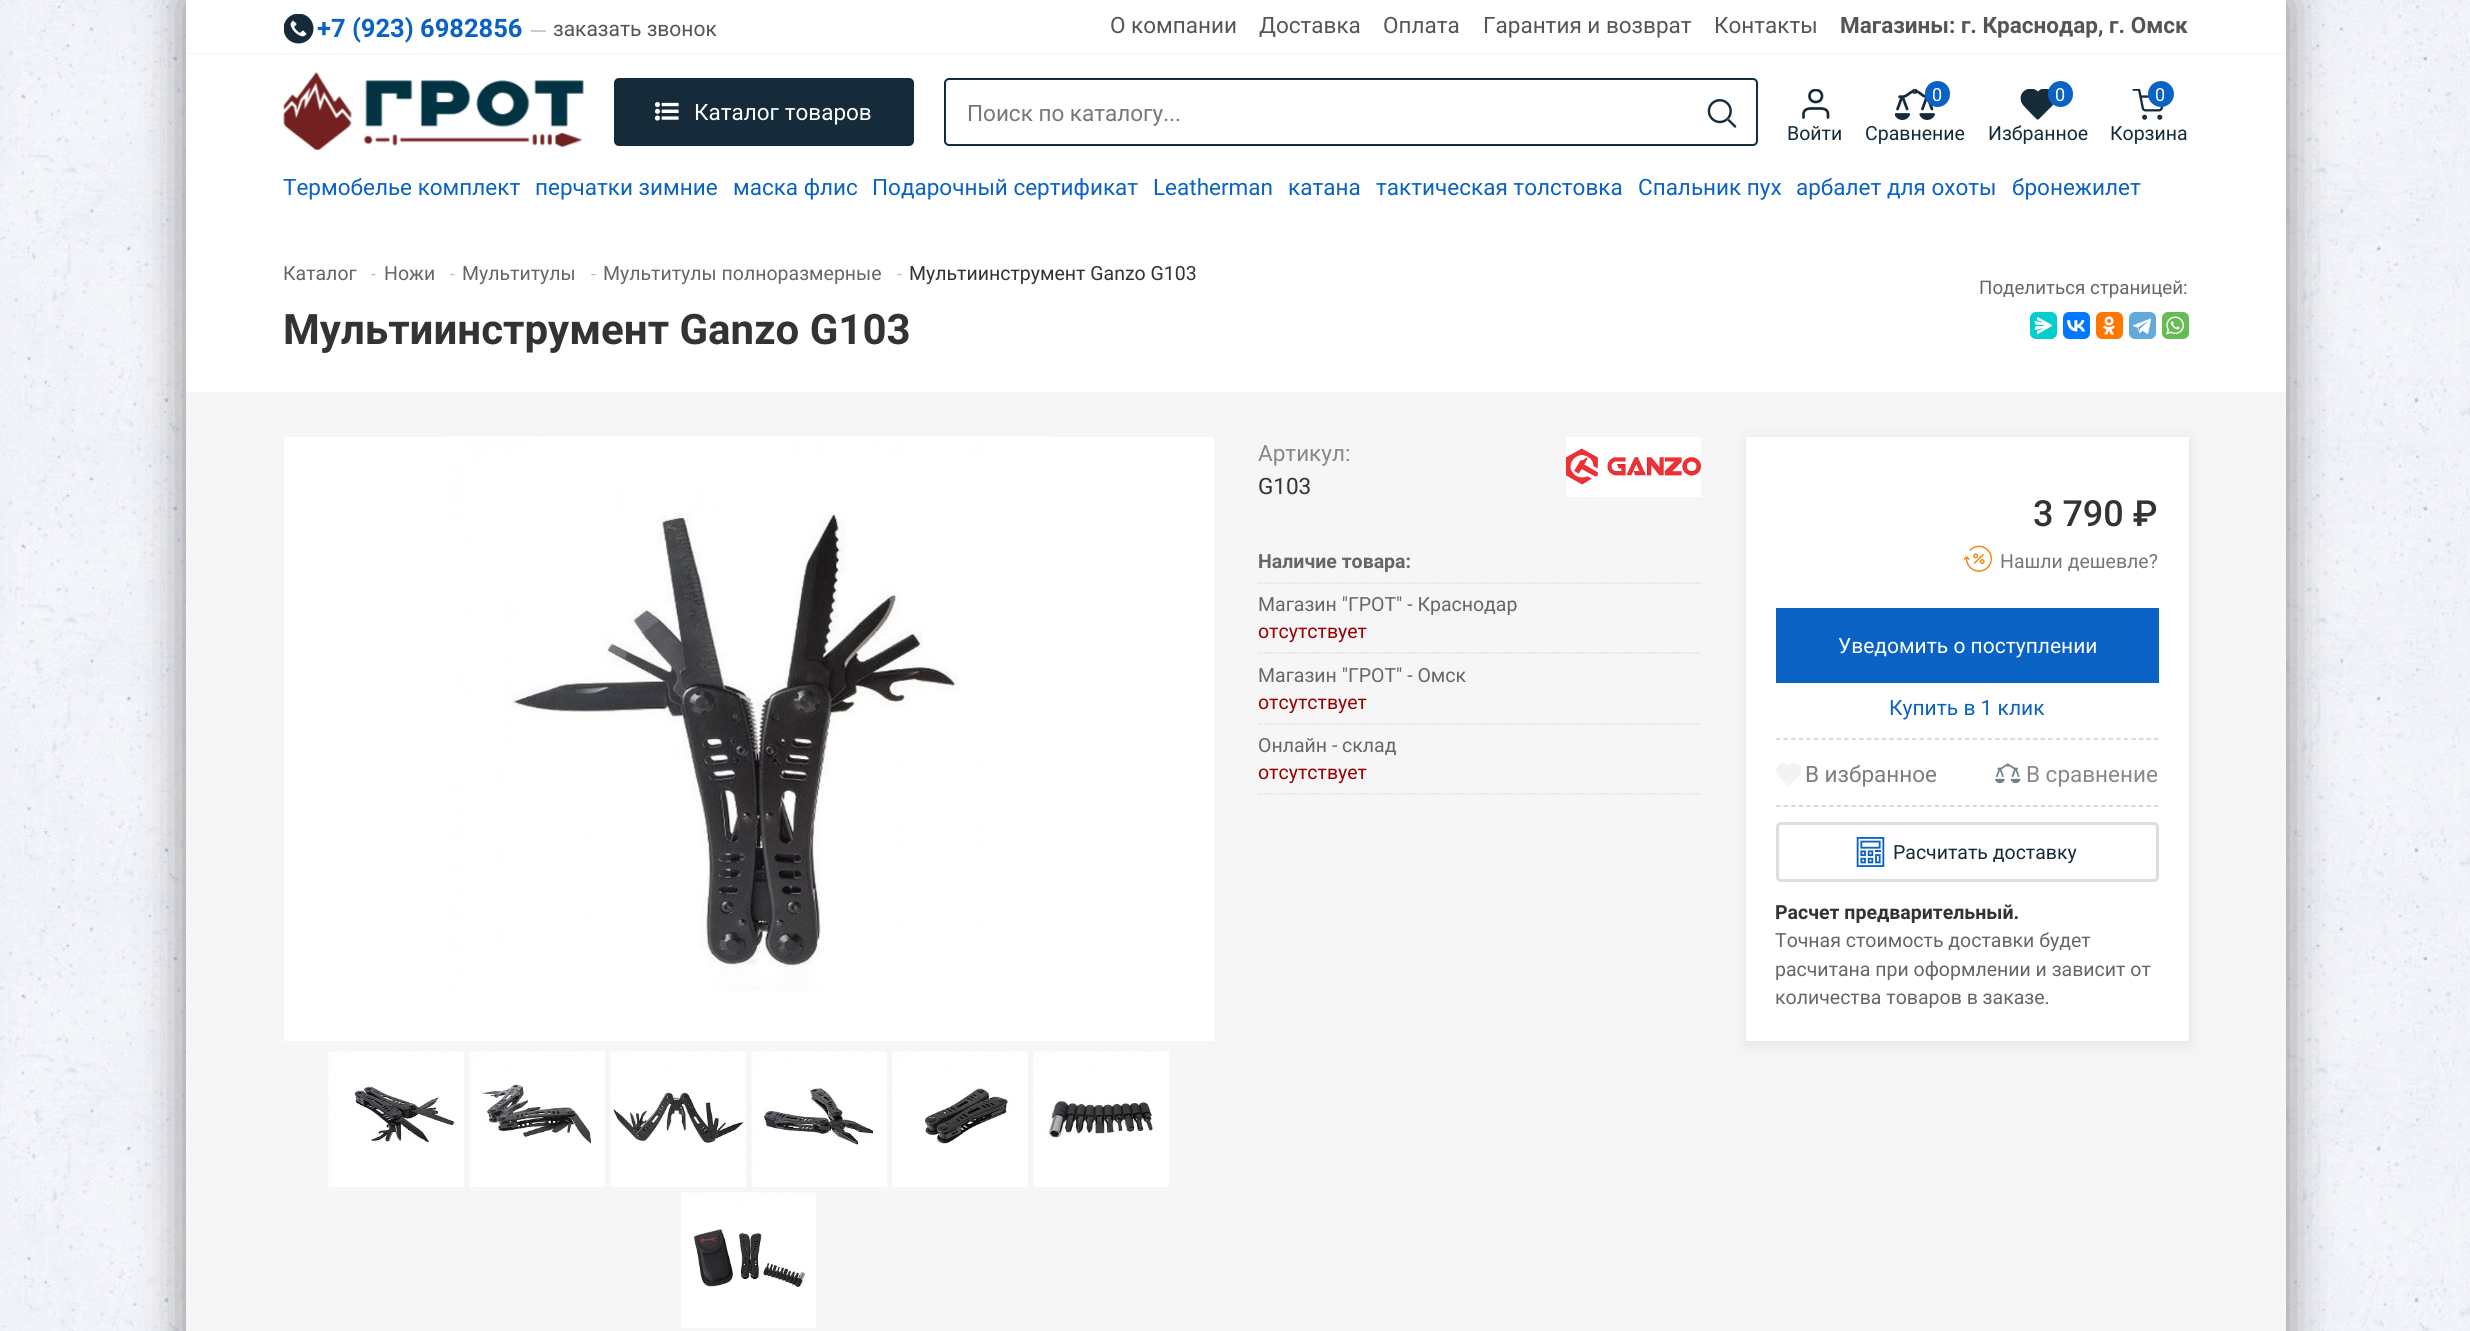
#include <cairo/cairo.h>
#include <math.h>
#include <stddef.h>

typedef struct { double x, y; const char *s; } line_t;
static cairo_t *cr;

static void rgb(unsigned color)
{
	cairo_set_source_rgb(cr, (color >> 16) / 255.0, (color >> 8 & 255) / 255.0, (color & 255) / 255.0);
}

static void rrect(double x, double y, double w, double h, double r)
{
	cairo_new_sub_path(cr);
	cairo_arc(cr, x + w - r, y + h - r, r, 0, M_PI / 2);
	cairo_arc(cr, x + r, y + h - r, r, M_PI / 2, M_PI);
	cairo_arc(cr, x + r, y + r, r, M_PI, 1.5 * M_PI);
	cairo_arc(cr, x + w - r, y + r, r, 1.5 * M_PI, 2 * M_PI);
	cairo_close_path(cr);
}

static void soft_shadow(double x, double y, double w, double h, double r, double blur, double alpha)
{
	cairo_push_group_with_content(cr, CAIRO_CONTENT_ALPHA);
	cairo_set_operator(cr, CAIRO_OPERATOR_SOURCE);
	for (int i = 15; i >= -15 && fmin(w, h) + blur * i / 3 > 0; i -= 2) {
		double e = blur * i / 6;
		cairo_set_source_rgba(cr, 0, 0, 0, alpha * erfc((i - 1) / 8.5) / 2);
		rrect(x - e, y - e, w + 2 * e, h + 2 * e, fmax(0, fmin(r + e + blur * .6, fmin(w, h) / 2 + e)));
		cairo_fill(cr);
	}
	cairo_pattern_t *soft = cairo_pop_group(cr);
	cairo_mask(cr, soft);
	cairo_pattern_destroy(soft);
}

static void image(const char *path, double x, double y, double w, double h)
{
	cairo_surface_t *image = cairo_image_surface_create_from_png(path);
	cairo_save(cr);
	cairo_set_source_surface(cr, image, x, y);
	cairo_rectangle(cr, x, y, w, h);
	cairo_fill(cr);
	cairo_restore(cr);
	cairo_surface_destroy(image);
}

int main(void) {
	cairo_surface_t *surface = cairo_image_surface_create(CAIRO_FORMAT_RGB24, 2470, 1331);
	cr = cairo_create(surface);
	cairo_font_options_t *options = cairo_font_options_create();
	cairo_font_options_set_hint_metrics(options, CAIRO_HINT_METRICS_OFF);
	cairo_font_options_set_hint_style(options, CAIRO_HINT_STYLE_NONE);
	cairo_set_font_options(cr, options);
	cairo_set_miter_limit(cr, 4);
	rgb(0xffffff);
	cairo_paint(cr);
	image("img/1.png", 0, 0, 2470, 1331);
	rgb(0x888888);
	soft_shadow(186, 0, 2100, 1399, 0, 22.5, 1);
	rgb(0xffffff);
	cairo_rectangle(cr, 186, 0, 2100, 392);
	cairo_fill(cr);
	rgb(0xf6f6f6);
	cairo_rectangle(cr, 186, 53, 2100, 2);
	cairo_fill(cr);
	image("img/2.png", 284, 14, 30, 30);
	rgb(0xcccccc);
	cairo_rectangle(cr, 531, 30, 15, 2);
	cairo_fill(cr);
	cairo_set_source_rgba(cr, 1, 1, 1, 0.9);
	cairo_rectangle(cr, 186, 54, 2100, 1);
	cairo_fill(cr);
	image("img/3.png", 283, 72, 301, 78);
	rgb(0x152b3a);
	rrect(614, 78, 300, 68, 5);
	cairo_fill(cr);
	image("img/4.png", 654, 102, 25, 19);
	rrect(945, 79, 812, 66, 4);
	cairo_stroke(cr);
	image("img/5.png", 1707, 99, 30, 29);
	cairo_save(cr);
	cairo_rectangle(cr, 1796, 89, 40, 31);
	cairo_clip(cr);
	cairo_new_path(cr);
	cairo_move_to(cr, 1828, 117.5);
	cairo_line_to(cr, 1828, 113.5);
	cairo_curve_to(cr, 1827, 107.5, 1820.5, 108.5, 1816, 108.5);
	cairo_curve_to(cr, 1811, 108.5, 1804.5, 107.5, 1803.5, 113.5);
	cairo_line_to(cr, 1803.5, 117.5);
	cairo_move_to(cr, 1822, 96);
	cairo_curve_to(cr, 1822, 104, 1809.5, 104, 1809.5, 96);
	cairo_curve_to(cr, 1809.5, 88, 1822, 88, 1822, 96);
	cairo_close_path(cr);
	cairo_set_line_width(cr, 2.7);
	cairo_set_line_cap(cr, CAIRO_LINE_CAP_ROUND);
	cairo_set_line_join(cr, CAIRO_LINE_JOIN_ROUND);
	cairo_stroke(cr);
	cairo_restore(cr);
	image("img/6.png", 1895, 89, 40, 31);
	rgb(0x0a62c4);
	rrect(1925, 81, 25, 26, 12.5);
	cairo_fill(cr);
	cairo_save(cr);
	cairo_rectangle(cr, 2018, 89, 40, 31);
	cairo_clip(cr);
	rgb(0x152b3a);
	cairo_new_path(cr);
	cairo_move_to(cr, 2052, 106);
	cairo_line_to(cr, 2041, 117);
	cairo_curve_to(cr, 2037.5, 120.5, 2038, 120.5, 2034.5, 117);
	cairo_line_to(cr, 2030, 112.5);
	cairo_curve_to(cr, 2027.5, 109.5, 2023, 106, 2021.5, 102.5);
	cairo_curve_to(cr, 2017, 92, 2030, 84, 2038, 91.5);
	cairo_curve_to(cr, 2047, 82, 2061, 96, 2052, 106);
	cairo_close_path(cr);
	cairo_fill(cr);
	cairo_restore(cr);
	rrect(2048, 81, 25, 26, 12.5);
	cairo_fill(cr);
	image("img/7.png", 2132, 89, 32, 31);
	cairo_arc(cr, 2161, 94, 13, 0, 2 * M_PI);
	cairo_fill(cr);
	rgb(0x03cece);
	rrect(2030, 312, 27, 27, 6);
	cairo_fill(cr);
	image("img/8.png", 2034, 317, 18, 17);
	rgb(0x0077ff);
	rrect(2063, 312, 27, 27, 6);
	cairo_fill(cr);
	image("img/9.png", 2067, 320, 18, 12);
	rgb(0xff7700);
	rrect(2096, 312, 27, 27, 6);
	cairo_fill(cr);
	image("img/10.png", 2103, 316, 12, 19);
	rgb(0x64a9dc);
	rrect(2129, 312, 27, 27, 6);
	cairo_fill(cr);
	image("img/11.png", 2133, 318, 18, 16);
	rgb(0x65bc54);
	rrect(2162, 312, 27, 27, 6);
	cairo_fill(cr);
	image("img/12.png", 2166, 316, 18, 19);
	rgb(0xf6f6f6);
	cairo_rectangle(cr, 186, 392, 2100, 939);
	cairo_fill(cr);
	rgb(0xffffff);
	cairo_rectangle(cr, 284, 437, 930, 604);
	cairo_fill(cr);
	image("img/13.png", 446, 436, 604, 555);
	cairo_rectangle(cr, 329, 1052, 135, 135);
	cairo_fill(cr);
	image("img/14.png", 328, 1051, 135, 135);
	cairo_rectangle(cr, 470, 1052, 135, 135);
	cairo_fill(cr);
	image("img/15.png", 469, 1051, 135, 135);
	cairo_rectangle(cr, 611, 1052, 135, 135);
	cairo_fill(cr);
	image("img/16.png", 610, 1051, 135, 135);
	cairo_rectangle(cr, 752, 1052, 135, 135);
	cairo_fill(cr);
	image("img/17.png", 751, 1051, 135, 135);
	cairo_rectangle(cr, 893, 1052, 135, 135);
	cairo_fill(cr);
	image("img/18.png", 892, 1051, 135, 135);
	cairo_rectangle(cr, 1034, 1052, 135, 135);
	cairo_fill(cr);
	image("img/19.png", 1033, 1051, 135, 135);
	cairo_rectangle(cr, 681, 1287, 135, 41);
	cairo_fill(cr);
	image("img/20.png", 681, 1192, 135, 95);
	cairo_rectangle(cr, 1566, 437, 135, 60);
	cairo_fill(cr);
	image("img/21.png", 1566, 448, 135, 37);
	cairo_new_path(cr);
	cairo_move_to(cr, 1258.5, 583);
	cairo_line_to(cr, 1701, 583);
	rgb(0xdddddd);
	cairo_set_line_width(cr, 1.5);
	cairo_set_dash(cr, (double[]){1.5, 1.5}, 2, 0);
	cairo_stroke(cr);
	cairo_new_path(cr);
	cairo_move_to(cr, 1258.5, 653);
	cairo_line_to(cr, 1701, 653);
	cairo_stroke(cr);
	cairo_new_path(cr);
	cairo_move_to(cr, 1258.5, 724);
	cairo_line_to(cr, 1701, 724);
	cairo_stroke(cr);
	cairo_new_path(cr);
	cairo_move_to(cr, 1258.5, 794);
	cairo_line_to(cr, 1701, 794);
	cairo_stroke(cr);
	rgb(0x000000);
	soft_shadow(1746, 440, 443, 604, 0, 7.5, 0.09);
	rgb(0xffffff);
	cairo_rectangle(cr, 1746, 437, 443, 604);
	cairo_fill(cr);
	image("img/22.png", 1964, 545, 28, 27);
	rgb(0x0a62c4);
	cairo_rectangle(cr, 1776, 608, 383, 75);
	cairo_fill(cr);
	cairo_new_path(cr);
	cairo_move_to(cr, 1776, 739);
	cairo_line_to(cr, 2158.5, 739);
	rgb(0xcccccc);
	cairo_set_dash(cr, (double[]){4.5, 3.06}, 2, 0);
	cairo_stroke(cr);
	cairo_new_path(cr);
	cairo_move_to(cr, 1776, 806);
	cairo_line_to(cr, 2158.5, 806);
	cairo_stroke(cr);
	image("img/23.png", 1776, 763, 26, 23);
	image("img/24.png", 1995, 763, 26, 21);
	rrect(1777.5, 823.5, 380, 57, 3.5);
	rgb(0xdddddd);
	cairo_set_line_width(cr, 3);
	cairo_set_dash(cr, NULL, 0, 0);
	cairo_stroke(cr);
	image("img/25.png", 1856, 837, 29, 30);
	cairo_select_font_face(cr, "Roboto", CAIRO_FONT_SLANT_NORMAL, CAIRO_FONT_WEIGHT_BOLD);
	cairo_set_font_size(cr, 25.5);
	rgb(0x0a62c4);
	cairo_move_to(cr, 317, 37);
	cairo_show_text(cr, "+7 (923) 6982856");
	cairo_select_font_face(cr, "Roboto", CAIRO_FONT_SLANT_NORMAL, CAIRO_FONT_WEIGHT_NORMAL);
	cairo_set_font_size(cr, 21);
	rgb(0x555555);
	cairo_move_to(cr, 553, 36);
	cairo_show_text(cr, "заказать звонок");
	cairo_set_font_size(cr, 22.5);
	{
		static const line_t items[] = {
			{1110, 33, "О компании"},
			{1259, 33, "Доставка"},
			{1383, 33, "Оплата"},
			{1483, 33, "Гарантия и возврат"},
			{1714, 33, "Контакты"},
		};
		for (size_t i = 0; i < sizeof items / sizeof *items; i++) {
			cairo_move_to(cr, items[i].x, items[i].y);
			cairo_show_text(cr, items[i].s);
		}
	}
	cairo_select_font_face(cr, "Roboto", CAIRO_FONT_SLANT_NORMAL, CAIRO_FONT_WEIGHT_BOLD);
	cairo_move_to(cr, 1840, 33);
	cairo_show_text(cr, "Магазины: г. Краснодар, г. Омск");
	cairo_select_font_face(cr, "Roboto", CAIRO_FONT_SLANT_NORMAL, CAIRO_FONT_WEIGHT_NORMAL);
	rgb(0xffffff);
	cairo_move_to(cr, 694, 120);
	cairo_show_text(cr, "Каталог товаров");
	rgb(0x777777);
	cairo_move_to(cr, 967, 121);
	cairo_show_text(cr, "Поиск по каталогу...");
	cairo_set_font_size(cr, 19.5);
	rgb(0x152b3a);
	cairo_move_to(cr, 1787, 140);
	cairo_show_text(cr, "Войти");
	cairo_set_font_size(cr, 18);
	rgb(0xffffff);
	cairo_move_to(cr, 1932, 101);
	cairo_show_text(cr, "0");
	cairo_set_font_size(cr, 19.5);
	rgb(0x152b3a);
	cairo_move_to(cr, 1865, 140);
	cairo_show_text(cr, "Сравнение");
	cairo_set_font_size(cr, 18);
	rgb(0xffffff);
	cairo_move_to(cr, 2055, 101);
	cairo_show_text(cr, "0");
	cairo_set_font_size(cr, 19.5);
	rgb(0x152b3a);
	cairo_move_to(cr, 1988, 140);
	cairo_show_text(cr, "Избранное");
	cairo_set_font_size(cr, 18);
	rgb(0xffffff);
	cairo_move_to(cr, 2155, 101);
	cairo_show_text(cr, "0");
	cairo_set_font_size(cr, 19.5);
	rgb(0x152b3a);
	cairo_move_to(cr, 2110, 140);
	cairo_show_text(cr, "Корзина");
	cairo_set_font_size(cr, 22.5);
	rgb(0x0a62c4);
	{
		static const line_t items[] = {
			{283, 195, "Термобелье комплект"},
			{535, 195, "перчатки зимние"},
			{733, 195, "маска флис"},
			{872, 195, "Подарочный сертификат"},
			{1153, 195, "Leatherman"},
			{1288, 195, "катана"},
			{1376, 195, "тактическая толстовка"},
			{1638, 195, "Спальник пух"},
			{1796, 195, "арбалет для охоты"},
			{2012, 195, "бронежилет"},
		};
		for (size_t i = 0; i < sizeof items / sizeof *items; i++) {
			cairo_move_to(cr, items[i].x, items[i].y);
			cairo_show_text(cr, items[i].s);
		}
	}
	cairo_set_font_size(cr, 19.5);
	rgb(0x666666);
	cairo_move_to(cr, 283, 280);
	cairo_show_text(cr, "Каталог");
	cairo_select_font_face(cr, "Roboto", CAIRO_FONT_SLANT_ITALIC, CAIRO_FONT_WEIGHT_NORMAL);
	cairo_set_font_size(cr, 18);
	rgb(0xb5bdc2);
	cairo_move_to(cr, 371, 280);
	cairo_show_text(cr, "-");
	cairo_select_font_face(cr, "Roboto", CAIRO_FONT_SLANT_NORMAL, CAIRO_FONT_WEIGHT_NORMAL);
	cairo_set_font_size(cr, 19.5);
	rgb(0x666666);
	cairo_move_to(cr, 384, 280);
	cairo_show_text(cr, "Ножи");
	cairo_select_font_face(cr, "Roboto", CAIRO_FONT_SLANT_ITALIC, CAIRO_FONT_WEIGHT_NORMAL);
	cairo_set_font_size(cr, 18);
	rgb(0xb5bdc2);
	cairo_move_to(cr, 450, 280);
	cairo_show_text(cr, "-");
	cairo_select_font_face(cr, "Roboto", CAIRO_FONT_SLANT_NORMAL, CAIRO_FONT_WEIGHT_NORMAL);
	cairo_set_font_size(cr, 19.5);
	rgb(0x666666);
	cairo_move_to(cr, 462, 280);
	cairo_show_text(cr, "Мультитулы");
	cairo_select_font_face(cr, "Roboto", CAIRO_FONT_SLANT_ITALIC, CAIRO_FONT_WEIGHT_NORMAL);
	cairo_set_font_size(cr, 18);
	rgb(0xb5bdc2);
	cairo_move_to(cr, 591, 280);
	cairo_show_text(cr, "-");
	cairo_select_font_face(cr, "Roboto", CAIRO_FONT_SLANT_NORMAL, CAIRO_FONT_WEIGHT_NORMAL);
	cairo_set_font_size(cr, 19.5);
	rgb(0x666666);
	cairo_move_to(cr, 603, 280);
	cairo_show_text(cr, "Мультитулы полноразмерные");
	cairo_select_font_face(cr, "Roboto", CAIRO_FONT_SLANT_ITALIC, CAIRO_FONT_WEIGHT_NORMAL);
	cairo_set_font_size(cr, 18);
	rgb(0xb5bdc2);
	cairo_move_to(cr, 897, 280);
	cairo_show_text(cr, "-");
	cairo_select_font_face(cr, "Roboto", CAIRO_FONT_SLANT_NORMAL, CAIRO_FONT_WEIGHT_NORMAL);
	cairo_set_font_size(cr, 19.5);
	rgb(0x333333);
	cairo_move_to(cr, 909, 280);
	cairo_show_text(cr, "Мультиинструмент Ganzo G103");
	cairo_select_font_face(cr, "Roboto", CAIRO_FONT_SLANT_NORMAL, CAIRO_FONT_WEIGHT_BOLD);
	cairo_set_font_size(cr, 42);
	cairo_move_to(cr, 283, 344);
	cairo_show_text(cr, "Мультиинструмент Ganzo G103");
	cairo_select_font_face(cr, "Roboto", CAIRO_FONT_SLANT_NORMAL, CAIRO_FONT_WEIGHT_NORMAL);
	cairo_set_font_size(cr, 18.75);
	rgb(0x666666);
	cairo_move_to(cr, 1979, 294);
	cairo_show_text(cr, "Поделиться страницей:");
	cairo_set_font_size(cr, 22.5);
	rgb(0x888888);
	cairo_move_to(cr, 1258, 461);
	cairo_show_text(cr, "Артикул:");
	rgb(0x333333);
	cairo_move_to(cr, 1258, 494);
	cairo_show_text(cr, "G103");
	cairo_select_font_face(cr, "Roboto", CAIRO_FONT_SLANT_NORMAL, CAIRO_FONT_WEIGHT_BOLD);
	cairo_set_font_size(cr, 19.5);
	rgb(0x666666);
	cairo_move_to(cr, 1258, 568);
	cairo_show_text(cr, "Наличие товара:");
	cairo_select_font_face(cr, "Roboto", CAIRO_FONT_SLANT_NORMAL, CAIRO_FONT_WEIGHT_NORMAL);
	cairo_move_to(cr, 1258, 611);
	cairo_show_text(cr, "Магазин \"ГРОТ\" - Краснодар");
	rgb(0x990000);
	cairo_move_to(cr, 1258, 638);
	cairo_show_text(cr, "отсутствует");
	rgb(0x666666);
	cairo_move_to(cr, 1258, 682);
	cairo_show_text(cr, "Магазин \"ГРОТ\" - Омск");
	rgb(0x990000);
	cairo_move_to(cr, 1258, 709);
	cairo_show_text(cr, "отсутствует");
	rgb(0x666666);
	cairo_move_to(cr, 1258, 752);
	cairo_show_text(cr, "Онлайн - склад");
	rgb(0x990000);
	cairo_move_to(cr, 1258, 779);
	cairo_show_text(cr, "отсутствует");
	cairo_select_font_face(cr, "Roboto Medium", CAIRO_FONT_SLANT_NORMAL, CAIRO_FONT_WEIGHT_NORMAL);
	cairo_set_font_size(cr, 36);
	rgb(0x333333);
	cairo_move_to(cr, 2033, 526);
	cairo_show_text(cr, "3 790 ₽");
	cairo_select_font_face(cr, "Roboto", CAIRO_FONT_SLANT_NORMAL, CAIRO_FONT_WEIGHT_NORMAL);
	cairo_set_font_size(cr, 19.5);
	rgb(0x777777);
	cairo_move_to(cr, 2000, 568);
	cairo_show_text(cr, "Нашли дешевле?");
	cairo_set_font_size(cr, 21);
	rgb(0xffffff);
	cairo_move_to(cr, 1838, 653);
	cairo_show_text(cr, "Уведомить о поступлении");
	rgb(0x0a62c4);
	cairo_move_to(cr, 1889, 715);
	cairo_show_text(cr, "Купить в 1 клик");
	cairo_set_font_size(cr, 22.5);
	rgb(0x7d7d7d);
	cairo_move_to(cr, 1805, 782);
	cairo_show_text(cr, "В избранное");
	rgb(0x888888);
	cairo_move_to(cr, 2026, 782);
	cairo_show_text(cr, "В сравнение");
	cairo_set_font_size(cr, 19.5);
	rgb(0x152b3a);
	cairo_move_to(cr, 1893, 859);
	cairo_show_text(cr, "Расчитать доставку");
	cairo_select_font_face(cr, "Roboto", CAIRO_FONT_SLANT_NORMAL, CAIRO_FONT_WEIGHT_BOLD);
	rgb(0x333333);
	cairo_move_to(cr, 1775, 919);
	cairo_show_text(cr, "Расчет предварительный.");
	cairo_select_font_face(cr, "Roboto", CAIRO_FONT_SLANT_NORMAL, CAIRO_FONT_WEIGHT_NORMAL);
	rgb(0x666666);
	{
		static const line_t items[] = {
			{1775, 947, "Точная стоимость доставки будет"},
			{1775, 976, "расчитана при оформлении и зависит от"},
			{1775, 1004, "количества товаров в заказе."},
		};
		for (size_t i = 0; i < sizeof items / sizeof *items; i++) {
			cairo_move_to(cr, items[i].x, items[i].y);
			cairo_show_text(cr, items[i].s);
		}
	}
	cairo_surface_write_to_png(surface, "page.png");
	cairo_font_options_destroy(options);
	cairo_destroy(cr);
	cairo_surface_destroy(surface);
	return 0;
}
